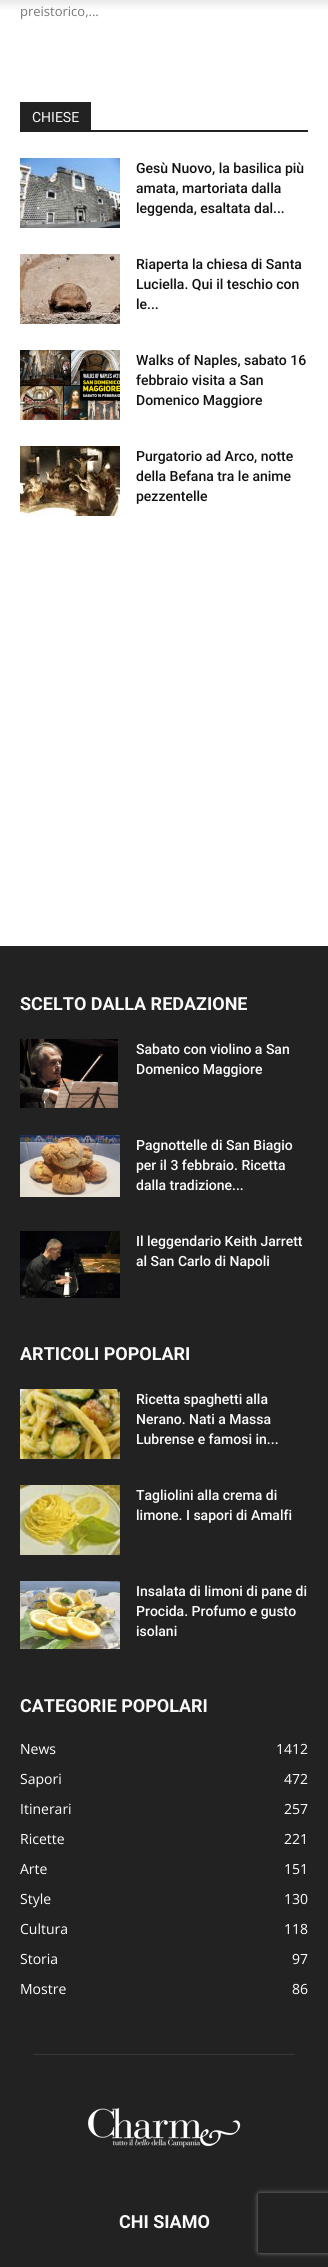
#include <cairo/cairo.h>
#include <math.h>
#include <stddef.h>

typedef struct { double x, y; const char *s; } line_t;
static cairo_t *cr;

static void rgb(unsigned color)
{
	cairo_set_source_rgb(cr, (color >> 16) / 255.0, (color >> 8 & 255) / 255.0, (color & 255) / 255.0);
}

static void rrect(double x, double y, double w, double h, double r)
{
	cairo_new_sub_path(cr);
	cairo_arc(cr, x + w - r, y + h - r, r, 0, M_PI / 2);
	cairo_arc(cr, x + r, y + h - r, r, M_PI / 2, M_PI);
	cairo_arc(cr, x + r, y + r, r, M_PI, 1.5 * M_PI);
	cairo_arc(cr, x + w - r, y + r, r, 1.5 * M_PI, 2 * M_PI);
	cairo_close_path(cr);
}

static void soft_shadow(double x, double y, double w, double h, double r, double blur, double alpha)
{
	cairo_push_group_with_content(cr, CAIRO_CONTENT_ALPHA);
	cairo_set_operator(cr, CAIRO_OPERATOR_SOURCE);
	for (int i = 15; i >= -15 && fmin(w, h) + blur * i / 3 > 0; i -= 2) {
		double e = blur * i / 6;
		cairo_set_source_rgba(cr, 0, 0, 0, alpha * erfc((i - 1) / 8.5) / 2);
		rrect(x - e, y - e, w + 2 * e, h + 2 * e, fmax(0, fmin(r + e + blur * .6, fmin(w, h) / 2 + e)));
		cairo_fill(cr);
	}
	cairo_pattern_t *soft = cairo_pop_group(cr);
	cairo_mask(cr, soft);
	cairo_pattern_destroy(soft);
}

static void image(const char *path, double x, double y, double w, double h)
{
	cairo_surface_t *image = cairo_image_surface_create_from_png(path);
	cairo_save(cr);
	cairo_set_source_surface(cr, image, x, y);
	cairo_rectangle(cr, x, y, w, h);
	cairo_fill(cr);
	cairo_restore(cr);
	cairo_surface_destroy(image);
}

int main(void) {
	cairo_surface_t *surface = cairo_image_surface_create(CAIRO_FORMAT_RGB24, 328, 2267);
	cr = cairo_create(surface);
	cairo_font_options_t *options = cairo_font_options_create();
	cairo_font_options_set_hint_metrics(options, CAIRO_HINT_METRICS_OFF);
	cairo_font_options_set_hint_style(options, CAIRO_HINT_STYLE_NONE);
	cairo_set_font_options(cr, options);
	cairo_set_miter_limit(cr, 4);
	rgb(0xffffff);
	cairo_paint(cr);
	rgb(0x222222);
	cairo_rectangle(cr, 20, 130, 288, 2);
	cairo_fill(cr);
	cairo_rectangle(cr, 20, 102, 71, 28);
	cairo_fill(cr);
	image("img/2.png", 20, 158, 100, 70);
	image("img/3.png", 20, 254, 100, 70);
	image("img/4.png", 20, 350, 100, 70);
	image("img/5.png", 20, 446, 100, 70);
	cairo_rectangle(cr, 0, 946, 328, 1321);
	cairo_fill(cr);
	image("img/6.png", 20, 1039, 98, 69);
	image("img/7.png", 20, 1135, 100, 62);
	image("img/8.png", 20, 1231, 100, 67);
	image("img/9.png", 20, 1389, 100, 70);
	image("img/10.png", 20, 1485, 100, 70);
	image("img/11.png", 20, 1581, 100, 68);
	rgb(0x383838);
	cairo_rectangle(cr, 33, 2054, 262, 1);
	cairo_fill(cr);
	image("img/12.png", 87, 2107, 154, 41);
	cairo_save(cr);
	cairo_set_fill_rule(cr, CAIRO_FILL_RULE_EVEN_ODD);
	cairo_new_path(cr);
	cairo_move_to(cr, 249, 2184);
	cairo_line_to(cr, 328, 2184);
	cairo_line_to(cr, 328, 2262);
	cairo_line_to(cr, 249, 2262);
	cairo_close_path(cr);
	cairo_move_to(cr, 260, 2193);
	cairo_line_to(cr, 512, 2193);
	cairo_curve_to(cr, 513, 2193, 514, 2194, 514, 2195);
	cairo_line_to(cr, 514, 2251);
	cairo_curve_to(cr, 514, 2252, 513, 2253, 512, 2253);
	cairo_line_to(cr, 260, 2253);
	cairo_curve_to(cr, 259, 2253, 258, 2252, 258, 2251);
	cairo_line_to(cr, 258, 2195);
	cairo_curve_to(cr, 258, 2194, 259, 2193, 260, 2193);
	cairo_close_path(cr);
	cairo_clip(cr);
	rgb(0x808080);
	soft_shadow(258, 2193, 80, 60, 2, 2.5, 1);
	cairo_restore(cr);
	cairo_select_font_face(cr, "Open Sans", CAIRO_FONT_SLANT_NORMAL, CAIRO_FONT_WEIGHT_NORMAL);
	cairo_set_font_size(cr, 13);
	rgb(0x777777);
	cairo_move_to(cr, 20, 16);
	cairo_show_text(cr, "preistorico,...");
	image("img/1.png", 0, 0, 328, 9);
	cairo_select_font_face(cr, "Roboto", CAIRO_FONT_SLANT_NORMAL, CAIRO_FONT_WEIGHT_NORMAL);
	cairo_set_font_size(cr, 14);
	rgb(0xf9f9f9);
	cairo_move_to(cr, 32, 122);
	cairo_show_text(cr, "CHIESE");
	cairo_select_font_face(cr, "Roboto Medium", CAIRO_FONT_SLANT_NORMAL, CAIRO_FONT_WEIGHT_NORMAL);
	rgb(0x111111);
	{
		static const line_t items[] = {
			{136, 173, "Gesù Nuovo, la basilica più"},
			{136, 193, "amata, martoriata dalla"},
			{136, 213, "leggenda, esaltata dal..."},
			{136, 269, "Riaperta la chiesa di Santa"},
			{136, 289, "Luciella. Qui il teschio con"},
			{136, 309, "le..."},
			{136, 365, "Walks of Naples, sabato 16"},
			{136, 385, "febbraio visita a San"},
			{136, 405, "Domenico Maggiore"},
			{136, 461, "Purgatorio ad Arco, notte"},
			{136, 481, "della Befana tra le anime"},
			{136, 501, "pezzentelle"},
		};
		for (size_t i = 0; i < sizeof items / sizeof *items; i++) {
			cairo_move_to(cr, items[i].x, items[i].y);
			cairo_show_text(cr, items[i].s);
		}
	}
	cairo_select_font_face(cr, "Roboto", CAIRO_FONT_SLANT_NORMAL, CAIRO_FONT_WEIGHT_BOLD);
	cairo_set_font_size(cr, 18);
	rgb(0xf9f9f9);
	cairo_move_to(cr, 20, 1010);
	cairo_show_text(cr, "SCELTO DALLA REDAZIONE");
	cairo_select_font_face(cr, "Roboto Medium", CAIRO_FONT_SLANT_NORMAL, CAIRO_FONT_WEIGHT_NORMAL);
	cairo_set_font_size(cr, 14);
	rgb(0xffffff);
	{
		static const line_t items[] = {
			{136, 1054, "Sabato con violino a San"},
			{136, 1074, "Domenico Maggiore"},
			{136, 1150, "Pagnottelle di San Biagio"},
			{136, 1170, "per il 3 febbraio. Ricetta"},
			{136, 1190, "dalla tradizione..."},
			{136, 1246, "Il leggendario Keith Jarrett"},
			{136, 1266, "al San Carlo di Napoli"},
		};
		for (size_t i = 0; i < sizeof items / sizeof *items; i++) {
			cairo_move_to(cr, items[i].x, items[i].y);
			cairo_show_text(cr, items[i].s);
		}
	}
	cairo_select_font_face(cr, "Roboto", CAIRO_FONT_SLANT_NORMAL, CAIRO_FONT_WEIGHT_BOLD);
	cairo_set_font_size(cr, 18);
	rgb(0xf9f9f9);
	cairo_move_to(cr, 20, 1360);
	cairo_show_text(cr, "ARTICOLI POPOLARI");
	cairo_select_font_face(cr, "Roboto Medium", CAIRO_FONT_SLANT_NORMAL, CAIRO_FONT_WEIGHT_NORMAL);
	cairo_set_font_size(cr, 14);
	rgb(0xffffff);
	{
		static const line_t items[] = {
			{136, 1404, "Ricetta spaghetti alla"},
			{136, 1424, "Nerano. Nati a Massa"},
			{136, 1444, "Lubrense e famosi in..."},
			{136, 1500, "Tagliolini alla crema di"},
			{136, 1520, "limone. I sapori di Amalfi"},
			{136, 1596, "Insalata di limoni di pane di"},
			{136, 1616, "Procida. Profumo e gusto"},
			{136, 1636, "isolani"},
		};
		for (size_t i = 0; i < sizeof items / sizeof *items; i++) {
			cairo_move_to(cr, items[i].x, items[i].y);
			cairo_show_text(cr, items[i].s);
		}
	}
	cairo_select_font_face(cr, "Roboto", CAIRO_FONT_SLANT_NORMAL, CAIRO_FONT_WEIGHT_BOLD);
	cairo_set_font_size(cr, 18);
	rgb(0xf9f9f9);
	cairo_move_to(cr, 20, 1712);
	cairo_show_text(cr, "CATEGORIE POPOLARI");
	cairo_select_font_face(cr, "Open Sans", CAIRO_FONT_SLANT_NORMAL, CAIRO_FONT_WEIGHT_NORMAL);
	cairo_set_font_size(cr, 14);
	rgb(0xffffff);
	{
		static const line_t items[] = {
			{20, 1754, "News"},
			{276, 1754, "1412"},
			{20, 1784, "Sapori"},
			{284, 1784, "472"},
			{20, 1814, "Itinerari"},
			{284, 1814, "257"},
			{20, 1844, "Ricette"},
			{284, 1844, "221"},
			{20, 1874, "Arte"},
			{284, 1874, "151"},
			{20, 1904, "Style"},
			{284, 1904, "130"},
			{20, 1934, "Cultura"},
			{284, 1934, "118"},
			{20, 1964, "Storia"},
			{292, 1964, "97"},
			{20, 1994, "Mostre"},
			{292, 1994, "86"},
		};
		for (size_t i = 0; i < sizeof items / sizeof *items; i++) {
			cairo_move_to(cr, items[i].x, items[i].y);
			cairo_show_text(cr, items[i].s);
		}
	}
	cairo_select_font_face(cr, "Roboto", CAIRO_FONT_SLANT_NORMAL, CAIRO_FONT_WEIGHT_BOLD);
	cairo_set_font_size(cr, 18);
	rgb(0xf9f9f9);
	cairo_move_to(cr, 119, 2228);
	cairo_show_text(cr, "CHI SIAMO");
	cairo_surface_write_to_png(surface, "page.png");
	cairo_font_options_destroy(options);
	cairo_destroy(cr);
	cairo_surface_destroy(surface);
	return 0;
}
